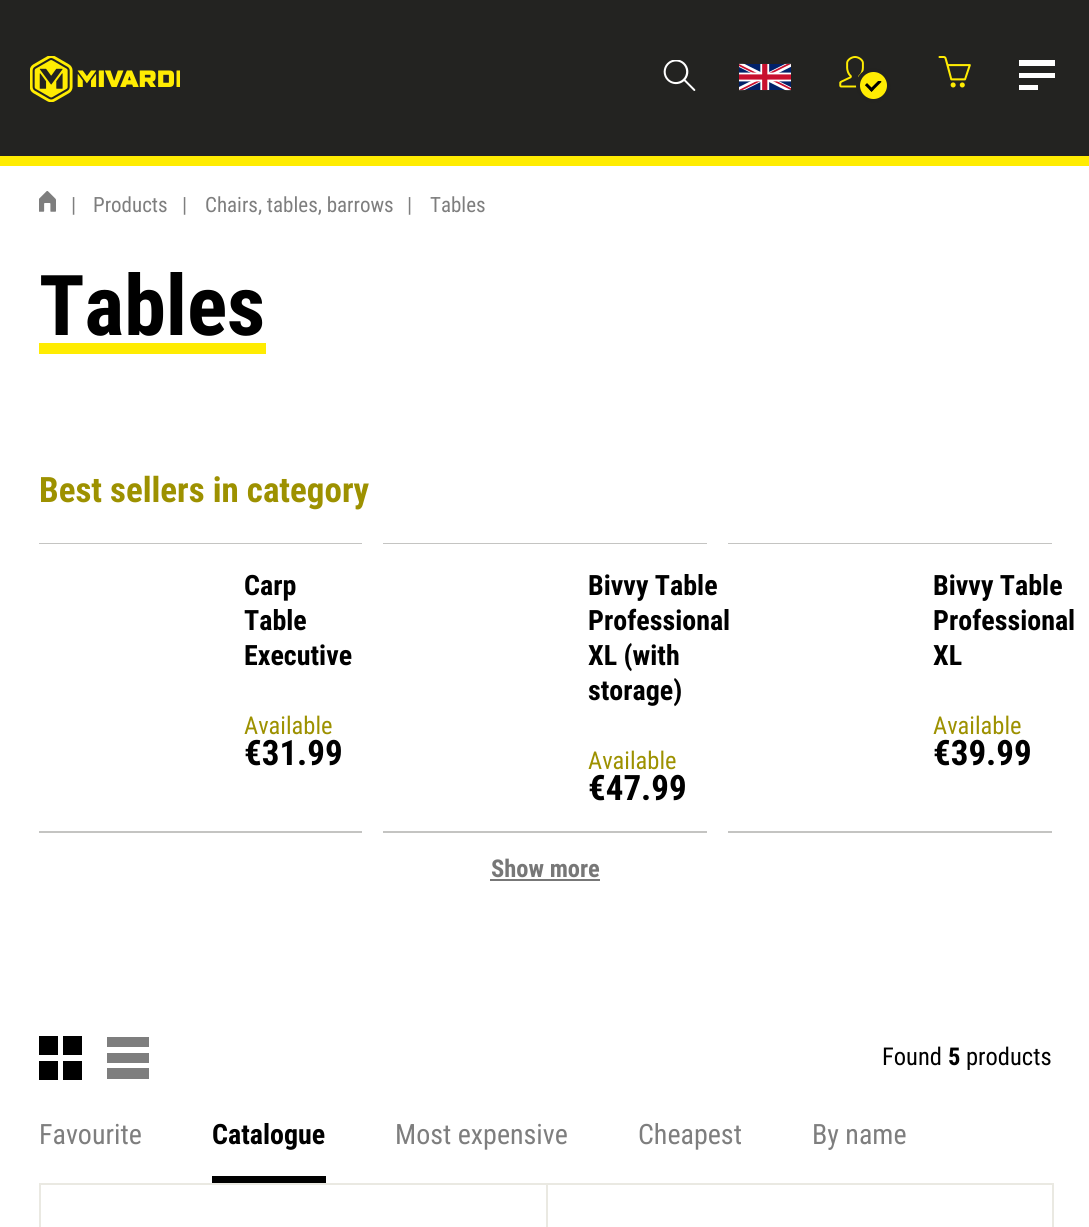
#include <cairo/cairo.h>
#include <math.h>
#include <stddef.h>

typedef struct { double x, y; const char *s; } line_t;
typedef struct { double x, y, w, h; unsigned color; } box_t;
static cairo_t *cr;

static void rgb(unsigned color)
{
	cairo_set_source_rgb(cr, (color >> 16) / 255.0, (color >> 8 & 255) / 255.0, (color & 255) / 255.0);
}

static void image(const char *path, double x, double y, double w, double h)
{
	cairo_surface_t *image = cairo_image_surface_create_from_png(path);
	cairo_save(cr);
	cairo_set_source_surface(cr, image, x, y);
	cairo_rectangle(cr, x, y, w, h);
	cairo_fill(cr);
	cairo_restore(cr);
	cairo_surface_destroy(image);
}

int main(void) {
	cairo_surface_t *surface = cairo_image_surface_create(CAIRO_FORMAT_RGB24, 1089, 1227);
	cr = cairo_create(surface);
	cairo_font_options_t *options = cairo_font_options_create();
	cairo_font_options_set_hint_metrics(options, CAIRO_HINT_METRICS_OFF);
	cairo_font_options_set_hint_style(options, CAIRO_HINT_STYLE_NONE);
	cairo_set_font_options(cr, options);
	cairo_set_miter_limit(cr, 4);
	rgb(0x232321);
	cairo_paint(cr);
	rgb(0xffec02);
	cairo_rectangle(cr, 0, 156, 1089, 10);
	cairo_fill(cr);
	image("img/1.png", 30, 56, 150, 46);
	image("img/2.png", 663, 60, 33, 31);
	image("img/3.png", 739, 63, 52, 28);
	image("img/4.png", 839, 56, 25, 32);
	cairo_arc(cr, 873.5, 85.5, 15.5, 0, 2 * M_PI);
	cairo_fill_preserve(cr);
	rgb(0x222220);
	cairo_set_line_width(cr, 4);
	cairo_stroke(cr);
	image("img/5.png", 865, 81, 17, 11);
	image("img/6.png", 938, 56, 33, 32);
	{
		static const box_t items[] = {
			{1019, 60, 36, 6, 0xffffff},
			{1019, 73, 36, 5, 0xffffff},
			{1019, 85, 19, 5, 0xffffff},
			{0, 166, 1089, 1061, 0xffffff},
		};
		for (size_t i = 0; i < sizeof items / sizeof *items; i++) {
			rgb(items[i].color);
			cairo_rectangle(cr, items[i].x, items[i].y, items[i].w, items[i].h);
			cairo_fill(cr);
		}
	}
	image("img/7.png", 39, 191, 17, 21);
	{
		static const box_t items[] = {
			{39, 343, 227, 11, 0xffec02},
			{39, 831, 323, 2, 0xc4c4c2},
			{39, 543, 323, 1, 0xc4c4c2},
		};
		for (size_t i = 0; i < sizeof items / sizeof *items; i++) {
			rgb(items[i].color);
			cairo_rectangle(cr, items[i].x, items[i].y, items[i].w, items[i].h);
			cairo_fill(cr);
		}
	}
	cairo_new_path(cr);
	cairo_move_to(cr, 383, 546);
	cairo_line_to(cr, 383, 833);
	cairo_line_to(cr, 707, 833);
	cairo_line_to(cr, 707, 831);
	cairo_line_to(cr, 383, 831);
	cairo_close_path(cr);
	cairo_fill(cr);
	cairo_new_path(cr);
	cairo_move_to(cr, 383, 543);
	cairo_line_to(cr, 383, 830);
	cairo_line_to(cr, 383, 544);
	cairo_line_to(cr, 707, 544);
	cairo_line_to(cr, 707, 543);
	cairo_close_path(cr);
	cairo_fill(cr);
	cairo_new_path(cr);
	cairo_move_to(cr, 728, 831);
	cairo_line_to(cr, 728, 833);
	cairo_line_to(cr, 1052, 833);
	cairo_line_to(cr, 1052, 546);
	cairo_line_to(cr, 1052, 831);
	cairo_close_path(cr);
	cairo_fill(cr);
	cairo_new_path(cr);
	cairo_move_to(cr, 728, 543);
	cairo_line_to(cr, 728, 544);
	cairo_line_to(cr, 1052, 544);
	cairo_line_to(cr, 1052, 830);
	cairo_line_to(cr, 1052, 543);
	cairo_close_path(cr);
	cairo_fill(cr);
	{
		static const box_t items[] = {
			{490, 879, 110, 2, 0x777777},
			{39, 1036, 19, 19, 0x000000},
			{63, 1036, 19, 19, 0x000000},
			{39, 1061, 19, 19, 0x000000},
			{63, 1061, 19, 19, 0x000000},
			{107, 1037, 42, 10, 0x7e7e7e},
			{107, 1053, 42, 10, 0x7e7e7e},
			{107, 1068, 42, 11, 0x7e7e7e},
			{212, 1176, 114, 7, 0x000000},
		};
		for (size_t i = 0; i < sizeof items / sizeof *items; i++) {
			rgb(items[i].color);
			cairo_rectangle(cr, items[i].x, items[i].y, items[i].w, items[i].h);
			cairo_fill(cr);
		}
	}
	rgb(0xeae9e2);
	cairo_new_path(cr);
	cairo_move_to(cr, 40, 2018);
	cairo_line_to(cr, 548, 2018);
	cairo_line_to(cr, 548, 1183);
	cairo_line_to(cr, 546, 1183);
	cairo_line_to(cr, 546, 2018);
	cairo_close_path(cr);
	cairo_fill(cr);
	cairo_rectangle(cr, 39, 1183, 1013, 2);
	cairo_fill(cr);
	cairo_rectangle(cr, 39, 1183, 2, 44);
	cairo_fill(cr);
	cairo_new_path(cr);
	cairo_move_to(cr, 548, 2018);
	cairo_line_to(cr, 1054, 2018);
	cairo_line_to(cr, 1054, 1183);
	cairo_line_to(cr, 1052, 1183);
	cairo_line_to(cr, 1052, 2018);
	cairo_close_path(cr);
	cairo_fill(cr);
	cairo_select_font_face(cr, "Roboto Condensed", CAIRO_FONT_SLANT_NORMAL, CAIRO_FONT_WEIGHT_NORMAL);
	cairo_set_font_size(cr, 21);
	rgb(0x7e7e7e);
	{
		static const line_t items[] = {
			{71, 212, "|"},
			{93, 212, "Products"},
			{182, 212, "|"},
			{205, 212, "Chairs, tables, barrows"},
			{407, 212, "|"},
			{430, 212, "Tables"},
		};
		for (size_t i = 0; i < sizeof items / sizeof *items; i++) {
			cairo_move_to(cr, items[i].x, items[i].y);
			cairo_show_text(cr, items[i].s);
		}
	}
	cairo_select_font_face(cr, "Roboto Condensed", CAIRO_FONT_SLANT_NORMAL, CAIRO_FONT_WEIGHT_BOLD);
	cairo_set_font_size(cr, 84);
	rgb(0x000000);
	cairo_move_to(cr, 39, 335);
	cairo_show_text(cr, "Tables");
	cairo_set_font_size(cr, 35);
	rgb(0x9d9100);
	cairo_move_to(cr, 39, 502);
	cairo_show_text(cr, "Best sellers in category");
	cairo_set_font_size(cr, 28);
	rgb(0x000000);
	{
		static const line_t items[] = {
			{244, 595, "Carp"},
			{244, 630, "Table"},
			{244, 665, "Executive"},
		};
		for (size_t i = 0; i < sizeof items / sizeof *items; i++) {
			cairo_move_to(cr, items[i].x, items[i].y);
			cairo_show_text(cr, items[i].s);
		}
	}
	cairo_select_font_face(cr, "Roboto Condensed", CAIRO_FONT_SLANT_NORMAL, CAIRO_FONT_WEIGHT_NORMAL);
	cairo_set_font_size(cr, 24.5);
	rgb(0x9d9100);
	cairo_move_to(cr, 244, 734);
	cairo_show_text(cr, "Available");
	cairo_select_font_face(cr, "Roboto Condensed", CAIRO_FONT_SLANT_NORMAL, CAIRO_FONT_WEIGHT_BOLD);
	cairo_set_font_size(cr, 35);
	rgb(0x000000);
	cairo_move_to(cr, 244, 765);
	cairo_show_text(cr, "€31.99");
	cairo_set_font_size(cr, 28);
	{
		static const line_t items[] = {
			{588, 595, "Bivvy Table"},
			{588, 630, "Professional"},
			{588, 665, "XL (with"},
			{588, 700, "storage)"},
		};
		for (size_t i = 0; i < sizeof items / sizeof *items; i++) {
			cairo_move_to(cr, items[i].x, items[i].y);
			cairo_show_text(cr, items[i].s);
		}
	}
	cairo_select_font_face(cr, "Roboto Condensed", CAIRO_FONT_SLANT_NORMAL, CAIRO_FONT_WEIGHT_NORMAL);
	cairo_set_font_size(cr, 24.5);
	rgb(0x9d9100);
	cairo_move_to(cr, 588, 769);
	cairo_show_text(cr, "Available");
	cairo_select_font_face(cr, "Roboto Condensed", CAIRO_FONT_SLANT_NORMAL, CAIRO_FONT_WEIGHT_BOLD);
	cairo_set_font_size(cr, 35);
	rgb(0x000000);
	cairo_move_to(cr, 588, 800);
	cairo_show_text(cr, "€47.99");
	cairo_set_font_size(cr, 28);
	{
		static const line_t items[] = {
			{933, 595, "Bivvy Table"},
			{933, 630, "Professional"},
			{933, 665, "XL"},
		};
		for (size_t i = 0; i < sizeof items / sizeof *items; i++) {
			cairo_move_to(cr, items[i].x, items[i].y);
			cairo_show_text(cr, items[i].s);
		}
	}
	cairo_select_font_face(cr, "Roboto Condensed", CAIRO_FONT_SLANT_NORMAL, CAIRO_FONT_WEIGHT_NORMAL);
	cairo_set_font_size(cr, 24.5);
	rgb(0x9d9100);
	cairo_move_to(cr, 933, 734);
	cairo_show_text(cr, "Available");
	cairo_select_font_face(cr, "Roboto Condensed", CAIRO_FONT_SLANT_NORMAL, CAIRO_FONT_WEIGHT_BOLD);
	cairo_set_font_size(cr, 35);
	rgb(0x000000);
	cairo_move_to(cr, 933, 765);
	cairo_show_text(cr, "€39.99");
	cairo_set_font_size(cr, 24.5);
	rgb(0x777777);
	cairo_move_to(cr, 491, 877);
	cairo_show_text(cr, "Show more");
	cairo_select_font_face(cr, "Roboto Condensed", CAIRO_FONT_SLANT_NORMAL, CAIRO_FONT_WEIGHT_NORMAL);
	rgb(0x000000);
	cairo_move_to(cr, 882, 1065);
	cairo_show_text(cr, "Found");
	cairo_select_font_face(cr, "Roboto Condensed", CAIRO_FONT_SLANT_NORMAL, CAIRO_FONT_WEIGHT_BOLD);
	cairo_move_to(cr, 948, 1065);
	cairo_show_text(cr, "5");
	cairo_select_font_face(cr, "Roboto Condensed", CAIRO_FONT_SLANT_NORMAL, CAIRO_FONT_WEIGHT_NORMAL);
	cairo_move_to(cr, 966, 1065);
	cairo_show_text(cr, "products");
	cairo_set_font_size(cr, 28);
	rgb(0x7e7e7e);
	cairo_move_to(cr, 39, 1144);
	cairo_show_text(cr, "Favourite");
	cairo_select_font_face(cr, "Roboto Condensed", CAIRO_FONT_SLANT_NORMAL, CAIRO_FONT_WEIGHT_BOLD);
	rgb(0x000000);
	cairo_move_to(cr, 212, 1144);
	cairo_show_text(cr, "Catalogue");
	cairo_select_font_face(cr, "Roboto Condensed", CAIRO_FONT_SLANT_NORMAL, CAIRO_FONT_WEIGHT_NORMAL);
	rgb(0x7e7e7e);
	{
		static const line_t items[] = {
			{395, 1144, "Most expensive"},
			{638, 1144, "Cheapest"},
			{812, 1144, "By name"},
		};
		for (size_t i = 0; i < sizeof items / sizeof *items; i++) {
			cairo_move_to(cr, items[i].x, items[i].y);
			cairo_show_text(cr, items[i].s);
		}
	}
	cairo_surface_write_to_png(surface, "page.png");
	cairo_font_options_destroy(options);
	cairo_destroy(cr);
	cairo_surface_destroy(surface);
	return 0;
}
